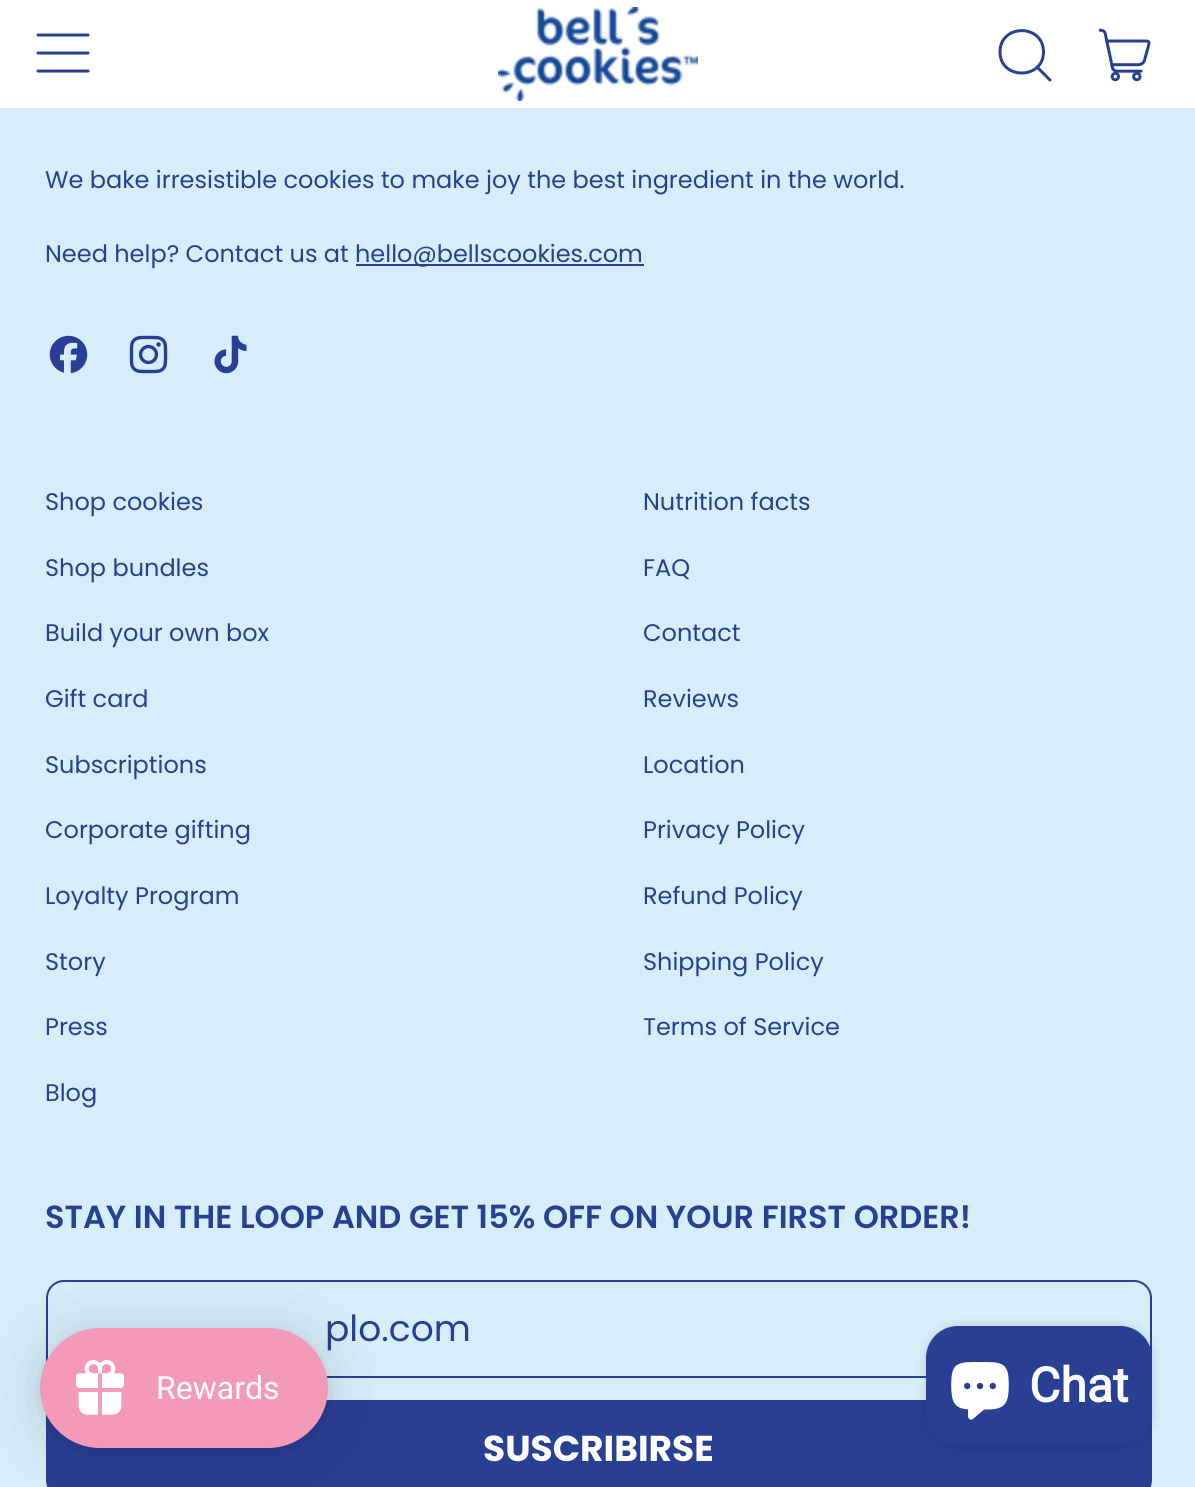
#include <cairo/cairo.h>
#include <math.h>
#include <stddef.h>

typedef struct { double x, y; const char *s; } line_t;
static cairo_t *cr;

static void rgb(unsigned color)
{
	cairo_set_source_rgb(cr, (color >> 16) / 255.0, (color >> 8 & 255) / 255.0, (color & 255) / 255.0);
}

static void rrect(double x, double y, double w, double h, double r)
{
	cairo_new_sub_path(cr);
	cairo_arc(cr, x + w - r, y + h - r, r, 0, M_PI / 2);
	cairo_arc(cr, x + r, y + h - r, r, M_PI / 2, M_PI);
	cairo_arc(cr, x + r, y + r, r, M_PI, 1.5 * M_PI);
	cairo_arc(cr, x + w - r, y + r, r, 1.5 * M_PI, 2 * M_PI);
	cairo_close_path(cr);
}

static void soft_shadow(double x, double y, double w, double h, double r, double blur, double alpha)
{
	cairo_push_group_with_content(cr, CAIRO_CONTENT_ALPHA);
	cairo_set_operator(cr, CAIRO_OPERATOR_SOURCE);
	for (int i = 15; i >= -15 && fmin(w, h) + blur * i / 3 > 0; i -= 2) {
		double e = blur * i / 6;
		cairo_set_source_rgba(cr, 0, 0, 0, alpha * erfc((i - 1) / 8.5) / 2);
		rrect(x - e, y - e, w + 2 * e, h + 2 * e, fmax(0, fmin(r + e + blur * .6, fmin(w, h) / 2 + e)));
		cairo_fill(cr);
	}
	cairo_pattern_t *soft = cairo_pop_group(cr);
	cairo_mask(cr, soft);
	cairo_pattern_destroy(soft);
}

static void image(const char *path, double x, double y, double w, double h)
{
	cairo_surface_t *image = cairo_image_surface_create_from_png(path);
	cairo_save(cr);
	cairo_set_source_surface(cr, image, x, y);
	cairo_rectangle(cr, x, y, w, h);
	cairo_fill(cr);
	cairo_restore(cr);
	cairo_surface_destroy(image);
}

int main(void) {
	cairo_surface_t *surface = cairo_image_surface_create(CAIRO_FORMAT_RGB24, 1195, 1487);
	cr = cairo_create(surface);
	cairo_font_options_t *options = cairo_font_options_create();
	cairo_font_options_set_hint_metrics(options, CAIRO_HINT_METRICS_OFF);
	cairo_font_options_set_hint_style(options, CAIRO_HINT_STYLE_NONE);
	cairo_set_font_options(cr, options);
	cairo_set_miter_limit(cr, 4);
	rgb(0xd7eefa);
	cairo_paint(cr);
	rgb(0xffffff);
	cairo_rectangle(cr, 0, 0, 1195, 108);
	cairo_fill(cr);
	image("img/1.png", 498, 7, 200, 94);
	cairo_new_path(cr);
	cairo_move_to(cr, 88, 71);
	cairo_line_to(cr, 38, 71);
	cairo_move_to(cr, 88, 53);
	cairo_line_to(cr, 38, 53);
	cairo_move_to(cr, 88, 35);
	cairo_line_to(cr, 38, 35);
	rgb(0x293f94);
	cairo_set_line_width(cr, 3);
	cairo_set_line_cap(cr, CAIRO_LINE_CAP_ROUND);
	cairo_set_line_join(cr, CAIRO_LINE_JOIN_ROUND);
	cairo_stroke(cr);
	cairo_new_path(cr);
	cairo_move_to(cr, 1000, 52);
	cairo_curve_to(cr, 1000, 80, 1043.5, 80, 1043.5, 52);
	cairo_curve_to(cr, 1043.5, 23.5, 1000, 23.5, 1000, 52);
	cairo_close_path(cr);
	cairo_move_to(cr, 1050, 80);
	cairo_line_to(cr, 1037, 67);
	cairo_stroke(cr);
	image("img/2.png", 1098, 28, 53, 54);
	cairo_rectangle(cr, 356, 264, 288, 2);
	cairo_fill(cr);
	image("img/3.png", 49, 335, 39, 39);
	image("img/4.png", 129, 335, 39, 39);
	image("img/5.png", 214, 335, 33, 39);
	rrect(47, 1281, 1104, 96, 17);
	cairo_set_line_width(cr, 2);
	cairo_set_line_cap(cr, CAIRO_LINE_CAP_BUTT);
	cairo_set_line_join(cr, CAIRO_LINE_JOIN_MITER);
	cairo_stroke(cr);
	rrect(47, 1401, 1104, 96, 17);
	cairo_fill_preserve(cr);
	cairo_stroke(cr);
	rgb(0x000000);
	soft_shadow(926, 1326, 226, 120, 32, 5, 0.15);
	rgb(0x293f94);
	rrect(926, 1326, 226, 120, 32);
	cairo_fill(cr);
	image("img/6.png", 951, 1362, 58, 58);
	rgb(0x000000);
	soft_shadow(40, 1332, 288, 120, 60, 30, 0.15);
	soft_shadow(40, 1330, 288, 120, 60, 6, 0.05);
	cairo_select_font_face(cr, "Poppins", CAIRO_FONT_SLANT_NORMAL, CAIRO_FONT_WEIGHT_NORMAL);
	cairo_set_font_size(cr, 24);
	rgb(0x293f94);
	{
		static const line_t items[] = {
			{45, 188, "We bake irresistible cookies to make joy the best ingredient in the world."},
			{45, 262, "Need help? Contact us at"},
			{355, 262, "hello@bellscookies.com"},
			{45, 510, "Shop cookies"},
			{45, 576, "Shop bundles"},
			{45, 641, "Build your own box"},
			{45, 707, "Gift card"},
			{45, 773, "Subscriptions"},
			{45, 838, "Corporate gifting"},
			{45, 904, "Loyalty Program"},
			{45, 970, "Story"},
			{45, 1035, "Press"},
			{45, 1101, "Blog"},
			{643, 510, "Nutrition facts"},
			{643, 576, "FAQ"},
			{643, 641, "Contact"},
			{643, 707, "Reviews"},
			{643, 773, "Location"},
			{643, 838, "Privacy Policy"},
			{643, 904, "Refund Policy"},
			{643, 970, "Shipping Policy"},
			{643, 1035, "Terms of Service"},
		};
		for (size_t i = 0; i < sizeof items / sizeof *items; i++) {
			cairo_move_to(cr, items[i].x, items[i].y);
			cairo_show_text(cr, items[i].s);
		}
	}
	cairo_select_font_face(cr, "Poppins SemiBold", CAIRO_FONT_SLANT_NORMAL, CAIRO_FONT_WEIGHT_NORMAL);
	cairo_set_font_size(cr, 32);
	cairo_move_to(cr, 45, 1228);
	cairo_show_text(cr, "STAY IN THE LOOP AND GET 15% OFF ON YOUR FIRST ORDER!");
	cairo_select_font_face(cr, "Poppins", CAIRO_FONT_SLANT_NORMAL, CAIRO_FONT_WEIGHT_NORMAL);
	cairo_set_font_size(cr, 36);
	cairo_move_to(cr, 325, 1341);
	cairo_show_text(cr, "plo.com");
	cairo_select_font_face(cr, "Poppins", CAIRO_FONT_SLANT_NORMAL, CAIRO_FONT_WEIGHT_BOLD);
	rgb(0xffffff);
	cairo_move_to(cr, 483, 1461);
	cairo_show_text(cr, "SUSCRIBIRSE");
	cairo_select_font_face(cr, "Roboto", CAIRO_FONT_SLANT_NORMAL, CAIRO_FONT_WEIGHT_BOLD);
	cairo_set_font_size(cr, 48);
	cairo_move_to(cr, 1029, 1402);
	cairo_show_text(cr, "Chat");
	rgb(0xf39ab9);
	rrect(40, 1328, 288, 120, 60);
	cairo_fill(cr);
	image("img/7.png", 76, 1360, 48, 55);
	cairo_select_font_face(cr, "Roboto", CAIRO_FONT_SLANT_NORMAL, CAIRO_FONT_WEIGHT_NORMAL);
	cairo_set_font_size(cr, 32);
	rgb(0xffffff);
	cairo_move_to(cr, 156, 1399);
	cairo_show_text(cr, "Rewards");
	cairo_surface_write_to_png(surface, "page.png");
	cairo_font_options_destroy(options);
	cairo_destroy(cr);
	cairo_surface_destroy(surface);
	return 0;
}
